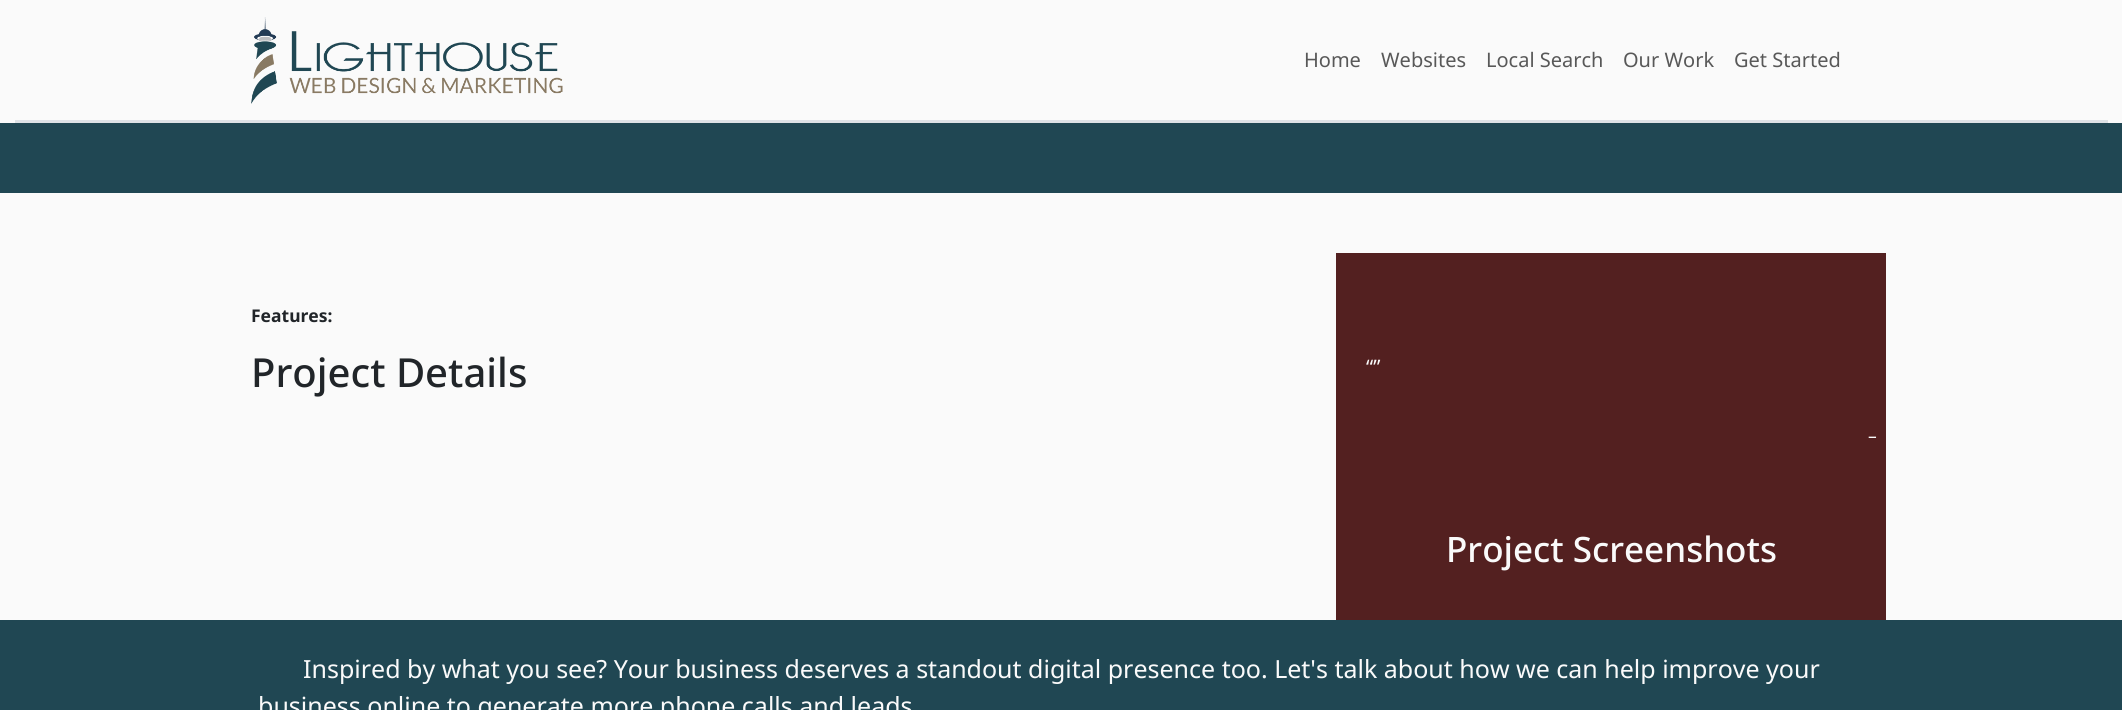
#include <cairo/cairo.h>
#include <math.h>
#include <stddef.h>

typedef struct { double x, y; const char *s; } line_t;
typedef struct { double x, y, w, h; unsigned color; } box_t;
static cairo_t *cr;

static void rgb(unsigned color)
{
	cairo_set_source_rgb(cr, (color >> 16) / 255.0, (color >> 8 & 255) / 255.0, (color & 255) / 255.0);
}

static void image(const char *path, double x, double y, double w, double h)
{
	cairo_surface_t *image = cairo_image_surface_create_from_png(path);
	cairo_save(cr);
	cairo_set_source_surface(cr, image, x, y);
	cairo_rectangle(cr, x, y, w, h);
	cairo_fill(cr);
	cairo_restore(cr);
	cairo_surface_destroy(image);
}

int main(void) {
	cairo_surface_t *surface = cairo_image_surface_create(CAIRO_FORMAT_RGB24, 2122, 710);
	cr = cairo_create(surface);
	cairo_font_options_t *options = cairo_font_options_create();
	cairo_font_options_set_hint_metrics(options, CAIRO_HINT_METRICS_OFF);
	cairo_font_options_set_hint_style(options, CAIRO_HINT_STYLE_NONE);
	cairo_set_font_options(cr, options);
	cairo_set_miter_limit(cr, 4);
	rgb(0xfafafa);
	cairo_paint(cr);
	rgb(0xdee2e6);
	cairo_rectangle(cr, 15, 120, 2093, 3);
	cairo_fill(cr);
	image("img/1.png", 251, 17, 312, 87);
	{
		static const box_t items[] = {
			{0, 123, 2122, 70, 0x204753},
			{1336, 253, 550, 367, 0x532020},
			{0, 620, 2122, 90, 0x204753},
		};
		for (size_t i = 0; i < sizeof items / sizeof *items; i++) {
			rgb(items[i].color);
			cairo_rectangle(cr, items[i].x, items[i].y, items[i].w, items[i].h);
			cairo_fill(cr);
		}
	}
	cairo_select_font_face(cr, "Noto Sans", CAIRO_FONT_SLANT_NORMAL, CAIRO_FONT_WEIGHT_NORMAL);
	cairo_set_font_size(cr, 20);
	rgb(0x585858);
	{
		static const line_t items[] = {
			{1304, 67, "Home"},
			{1381, 67, "Websites"},
			{1486, 67, "Local Search"},
			{1623, 67, "Our Work"},
			{1734, 67, "Get Started"},
		};
		for (size_t i = 0; i < sizeof items / sizeof *items; i++) {
			cairo_move_to(cr, items[i].x, items[i].y);
			cairo_show_text(cr, items[i].s);
		}
	}
	cairo_select_font_face(cr, "Noto Sans", CAIRO_FONT_SLANT_NORMAL, CAIRO_FONT_WEIGHT_BOLD);
	cairo_set_font_size(cr, 17.5);
	rgb(0x212529);
	cairo_move_to(cr, 251, 322);
	cairo_show_text(cr, "Features:");
	cairo_select_font_face(cr, "Noto Sans Medium", CAIRO_FONT_SLANT_NORMAL, CAIRO_FONT_WEIGHT_NORMAL);
	cairo_set_font_size(cr, 40);
	cairo_move_to(cr, 251, 387);
	cairo_show_text(cr, "Project Details");
	cairo_select_font_face(cr, "Noto Sans", CAIRO_FONT_SLANT_NORMAL, CAIRO_FONT_WEIGHT_NORMAL);
	cairo_set_font_size(cr, 20);
	rgb(0xfafafa);
	cairo_move_to(cr, 1366, 374);
	cairo_show_text(cr, "“”");
	cairo_set_font_size(cr, 17.5);
	cairo_move_to(cr, 1868, 442);
	cairo_show_text(cr, "–");
	cairo_select_font_face(cr, "Noto Sans Medium", CAIRO_FONT_SLANT_NORMAL, CAIRO_FONT_WEIGHT_NORMAL);
	cairo_set_font_size(cr, 35);
	cairo_move_to(cr, 1446, 562);
	cairo_show_text(cr, "Project Screenshots");
	cairo_select_font_face(cr, "Noto Sans", CAIRO_FONT_SLANT_NORMAL, CAIRO_FONT_WEIGHT_NORMAL);
	cairo_set_font_size(cr, 25);
	cairo_move_to(cr, 303, 678);
	cairo_show_text(cr, "Inspired by what you see? Your business deserves a standout digital presence too. Let's talk about how we can help improve your");
	cairo_move_to(cr, 258, 715);
	cairo_show_text(cr, "business online to generate more phone calls and leads");
	cairo_surface_write_to_png(surface, "page.png");
	cairo_font_options_destroy(options);
	cairo_destroy(cr);
	cairo_surface_destroy(surface);
	return 0;
}
